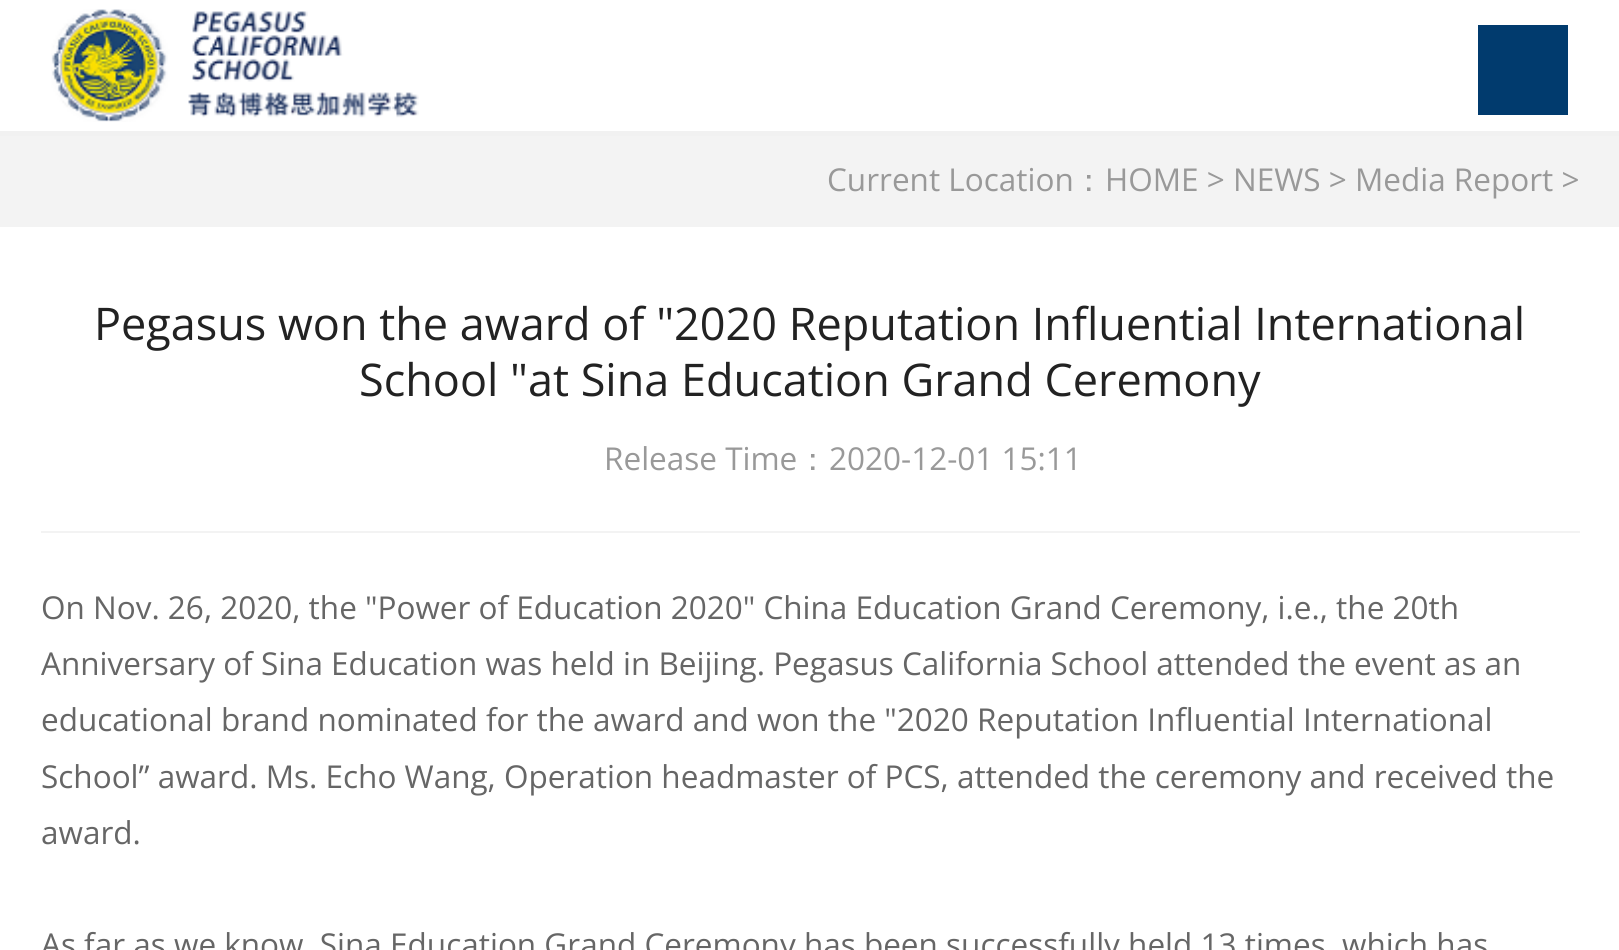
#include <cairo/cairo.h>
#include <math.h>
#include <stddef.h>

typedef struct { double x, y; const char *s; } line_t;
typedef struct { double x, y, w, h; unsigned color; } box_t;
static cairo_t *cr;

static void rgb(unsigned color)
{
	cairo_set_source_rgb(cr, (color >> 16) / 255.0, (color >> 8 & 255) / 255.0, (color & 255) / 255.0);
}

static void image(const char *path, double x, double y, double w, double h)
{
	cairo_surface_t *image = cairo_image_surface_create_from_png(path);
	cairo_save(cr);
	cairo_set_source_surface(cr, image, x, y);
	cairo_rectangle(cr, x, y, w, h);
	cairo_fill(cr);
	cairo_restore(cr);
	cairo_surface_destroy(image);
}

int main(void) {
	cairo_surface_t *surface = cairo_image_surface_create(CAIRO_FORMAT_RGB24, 1619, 950);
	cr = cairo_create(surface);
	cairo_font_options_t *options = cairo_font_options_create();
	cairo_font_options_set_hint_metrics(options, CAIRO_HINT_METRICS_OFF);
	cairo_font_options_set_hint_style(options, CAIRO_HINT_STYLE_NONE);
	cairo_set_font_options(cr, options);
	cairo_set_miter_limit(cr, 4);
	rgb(0xffffff);
	cairo_paint(cr);
	rgb(0xf1f1f1);
	cairo_rectangle(cr, 0, 131, 1619, 5);
	cairo_fill(cr);
	image("img/1.png", 51, 9, 368, 113);
	{
		static const box_t items[] = {
			{1478, 25, 90, 90, 0x013b6e},
			{0, 136, 1619, 91, 0xf3f3f3},
			{41, 531, 1539, 2, 0xf3f3f3},
		};
		for (size_t i = 0; i < sizeof items / sizeof *items; i++) {
			rgb(items[i].color);
			cairo_rectangle(cr, items[i].x, items[i].y, items[i].w, items[i].h);
			cairo_fill(cr);
		}
	}
	cairo_select_font_face(cr, "Open Sans", CAIRO_FONT_SLANT_NORMAL, CAIRO_FONT_WEIGHT_NORMAL);
	cairo_set_font_size(cr, 31.5);
	rgb(0x999999);
	cairo_move_to(cr, 827, 191);
	cairo_show_text(cr, "Current Location");
	cairo_select_font_face(cr, "WenQuanYi Zen Hei Medium", CAIRO_FONT_SLANT_NORMAL, CAIRO_FONT_WEIGHT_NORMAL);
	cairo_move_to(cr, 1073, 191);
	cairo_show_text(cr, "：");
	cairo_select_font_face(cr, "Open Sans", CAIRO_FONT_SLANT_NORMAL, CAIRO_FONT_WEIGHT_NORMAL);
	cairo_move_to(cr, 1105, 191);
	cairo_show_text(cr, "HOME > NEWS > Media Report >");
	cairo_set_font_size(cr, 45);
	rgb(0x222222);
	cairo_move_to(cr, 94, 340);
	cairo_show_text(cr, "Pegasus won the award of \"2020 Reputation Influential International");
	cairo_move_to(cr, 359, 396);
	cairo_show_text(cr, "School \"at Sina Education Grand Ceremony");
	cairo_set_font_size(cr, 31.5);
	rgb(0x999999);
	cairo_move_to(cr, 604, 470);
	cairo_show_text(cr, "Release Time");
	cairo_select_font_face(cr, "WenQuanYi Zen Hei Medium", CAIRO_FONT_SLANT_NORMAL, CAIRO_FONT_WEIGHT_NORMAL);
	cairo_move_to(cr, 797, 470);
	cairo_show_text(cr, "：");
	cairo_select_font_face(cr, "Open Sans", CAIRO_FONT_SLANT_NORMAL, CAIRO_FONT_WEIGHT_NORMAL);
	cairo_move_to(cr, 829, 470);
	cairo_show_text(cr, "2020-12-01 15:11");
	rgb(0x666666);
	{
		static const line_t items[] = {
			{41, 619, "On Nov. 26, 2020, the \"Power of Education 2020\" China Education Grand Ceremony, i.e., the 20th"},
			{41, 675, "Anniversary of Sina Education was held in Beijing. Pegasus California School attended the event as an"},
			{41, 731, "educational brand nominated for the award and won the \"2020 Reputation Influential International"},
			{41, 788, "School” award. Ms. Echo Wang, Operation headmaster of PCS, attended the ceremony and received the"},
			{41, 844, "award."},
			{41, 956, "As far as we know, Sina Education Grand Ceremony has been successfully held 13 times, which has"},
		};
		for (size_t i = 0; i < sizeof items / sizeof *items; i++) {
			cairo_move_to(cr, items[i].x, items[i].y);
			cairo_show_text(cr, items[i].s);
		}
	}
	cairo_surface_write_to_png(surface, "page.png");
	cairo_font_options_destroy(options);
	cairo_destroy(cr);
	cairo_surface_destroy(surface);
	return 0;
}
